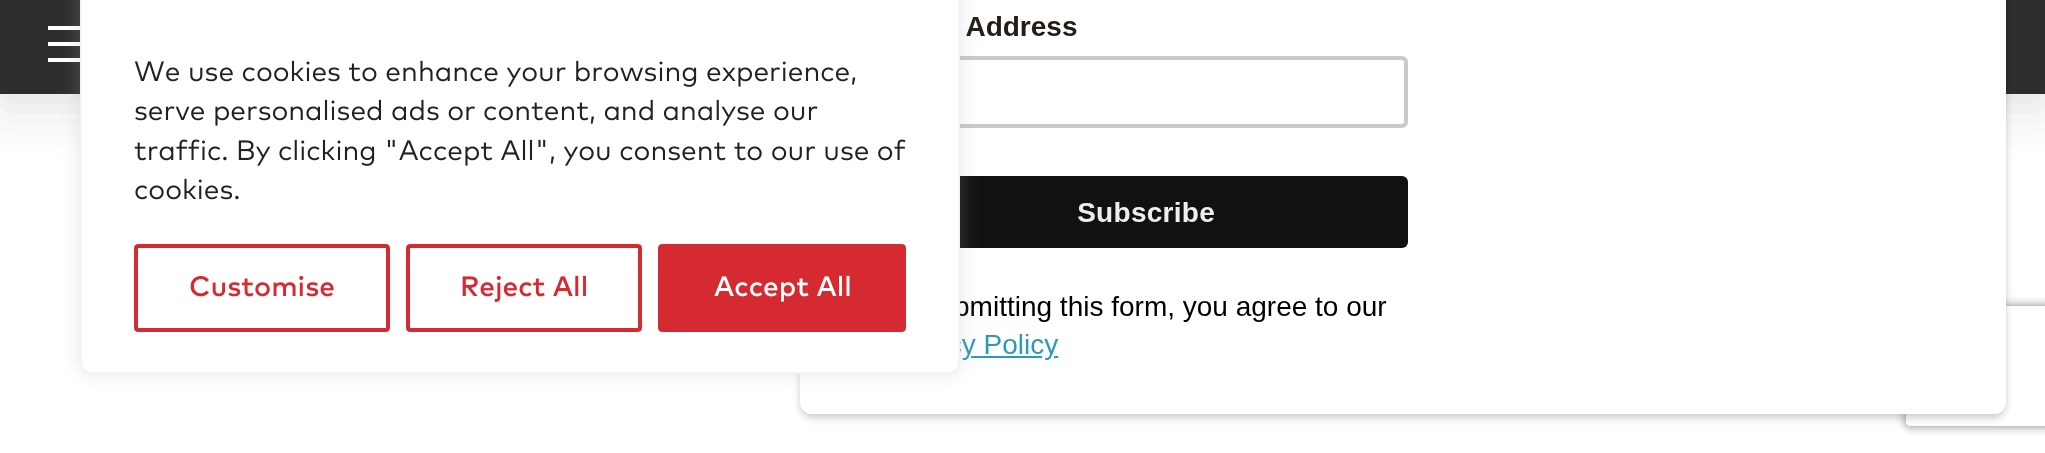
#include <cairo/cairo.h>
#include <math.h>
#include <stddef.h>

typedef struct { double x, y; const char *s; } line_t;
typedef struct { double x, y, w, h; unsigned color; } box_t;
static cairo_t *cr;

static void rgb(unsigned color)
{
	cairo_set_source_rgb(cr, (color >> 16) / 255.0, (color >> 8 & 255) / 255.0, (color & 255) / 255.0);
}

static void rrect(double x, double y, double w, double h, double r)
{
	cairo_new_sub_path(cr);
	cairo_arc(cr, x + w - r, y + h - r, r, 0, M_PI / 2);
	cairo_arc(cr, x + r, y + h - r, r, M_PI / 2, M_PI);
	cairo_arc(cr, x + r, y + r, r, M_PI, 1.5 * M_PI);
	cairo_arc(cr, x + w - r, y + r, r, 1.5 * M_PI, 2 * M_PI);
	cairo_close_path(cr);
}

static void soft_shadow(double x, double y, double w, double h, double r, double blur, double alpha)
{
	cairo_push_group_with_content(cr, CAIRO_CONTENT_ALPHA);
	cairo_set_operator(cr, CAIRO_OPERATOR_SOURCE);
	for (int i = 15; i >= -15 && fmin(w, h) + blur * i / 3 > 0; i -= 2) {
		double e = blur * i / 6;
		cairo_set_source_rgba(cr, 0, 0, 0, alpha * erfc((i - 1) / 8.5) / 2);
		rrect(x - e, y - e, w + 2 * e, h + 2 * e, fmax(0, fmin(r + e + blur * .6, fmin(w, h) / 2 + e)));
		cairo_fill(cr);
	}
	cairo_pattern_t *soft = cairo_pop_group(cr);
	cairo_mask(cr, soft);
	cairo_pattern_destroy(soft);
}

static void image(const char *path, double x, double y, double w, double h)
{
	cairo_surface_t *image = cairo_image_surface_create_from_png(path);
	cairo_save(cr);
	cairo_set_source_surface(cr, image, x, y);
	cairo_rectangle(cr, x, y, w, h);
	cairo_fill(cr);
	cairo_restore(cr);
	cairo_surface_destroy(image);
}

int main(void) {
	cairo_surface_t *surface = cairo_image_surface_create(CAIRO_FORMAT_RGB24, 2045, 453);
	cr = cairo_create(surface);
	cairo_font_options_t *options = cairo_font_options_create();
	cairo_font_options_set_hint_metrics(options, CAIRO_HINT_METRICS_OFF);
	cairo_font_options_set_hint_style(options, CAIRO_HINT_STYLE_NONE);
	cairo_set_font_options(cr, options);
	cairo_set_miter_limit(cr, 4);
	rgb(0xffffff);
	cairo_paint(cr);
	rgb(0x000000);
	soft_shadow(0, 4, 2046, 94, 0, 32, 0.15);
	rgb(0x2d2d2d);
	cairo_rectangle(cr, 0, 0, 2045, 94);
	cairo_fill(cr);
	rgb(0x000000);
	soft_shadow(800, -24, 1206, 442, 12, 4, 0.2);
	cairo_save(cr);
	cairo_set_fill_rule(cr, CAIRO_FILL_RULE_EVEN_ODD);
	cairo_new_path(cr);
	cairo_move_to(cr, 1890, 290);
	cairo_line_to(cr, 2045, 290);
	cairo_line_to(cr, 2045, 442);
	cairo_line_to(cr, 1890, 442);
	cairo_close_path(cr);
	cairo_move_to(cr, 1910, 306);
	cairo_line_to(cr, 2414, 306);
	cairo_curve_to(cr, 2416, 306, 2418, 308, 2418, 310);
	cairo_line_to(cr, 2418, 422);
	cairo_curve_to(cr, 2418, 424, 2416, 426, 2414, 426);
	cairo_line_to(cr, 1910, 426);
	cairo_curve_to(cr, 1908, 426, 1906, 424, 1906, 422);
	cairo_line_to(cr, 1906, 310);
	cairo_curve_to(cr, 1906, 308, 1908, 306, 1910, 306);
	cairo_close_path(cr);
	cairo_clip(cr);
	rgb(0x808080);
	soft_shadow(1906, 306, 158, 120, 4, 5, 1);
	cairo_restore(cr);
	rgb(0xffffff);
	rrect(800, -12, 1206, 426, 12);
	cairo_fill(cr);
	image("img/1.png", 802, 16, 1202, 398);
	{
		static const box_t items[] = {
			{48, 42, 32, 4, 0xffffff},
			{48, 26, 32, 4, 0xffffff},
			{48, 58, 32, 4, 0xffffff},
		};
		for (size_t i = 0; i < sizeof items / sizeof *items; i++) {
			rgb(items[i].color);
			cairo_rectangle(cr, items[i].x, items[i].y, items[i].w, items[i].h);
			cairo_fill(cr);
		}
	}
	rgb(0xacabab);
	soft_shadow(80, -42, 880, 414, 12, 10, 0.3);
	rgb(0xffffff);
	rrect(81, -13, 878, 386, 11);
	cairo_fill_preserve(cr);
	rgb(0xf4f4f4);
	cairo_stroke(cr);
	rrect(136, 246, 252, 84, 2);
	rgb(0xd62a33);
	cairo_set_line_width(cr, 4);
	cairo_stroke(cr);
	rrect(408, 246, 232, 84, 2);
	cairo_stroke(cr);
	rrect(660, 246, 244, 84, 2);
	cairo_fill_preserve(cr);
	cairo_stroke(cr);
	cairo_select_font_face(cr, "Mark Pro", CAIRO_FONT_SLANT_NORMAL, CAIRO_FONT_WEIGHT_NORMAL);
	cairo_set_font_size(cr, 28);
	rgb(0x212121);
	{
		static const line_t items[] = {
			{134, 81, "We use cookies to enhance your browsing experience,"},
			{134, 120, "serve personalised ads or content, and analyse our"},
			{134, 160, "traffic. By clicking \"Accept All\", you consent to our use of"},
			{134, 199, "cookies."},
		};
		for (size_t i = 0; i < sizeof items / sizeof *items; i++) {
			cairo_move_to(cr, items[i].x, items[i].y);
			cairo_show_text(cr, items[i].s);
		}
	}
	cairo_select_font_face(cr, "Mark Pro Medium", CAIRO_FONT_SLANT_NORMAL, CAIRO_FONT_WEIGHT_NORMAL);
	rgb(0xd62a33);
	cairo_move_to(cr, 189, 296);
	cairo_show_text(cr, "Customise");
	cairo_move_to(cr, 460, 296);
	cairo_show_text(cr, "Reject All");
	rgb(0xffffff);
	cairo_move_to(cr, 714, 296);
	cairo_show_text(cr, "Accept All");
	cairo_surface_write_to_png(surface, "page.png");
	cairo_font_options_destroy(options);
	cairo_destroy(cr);
	cairo_surface_destroy(surface);
	return 0;
}
